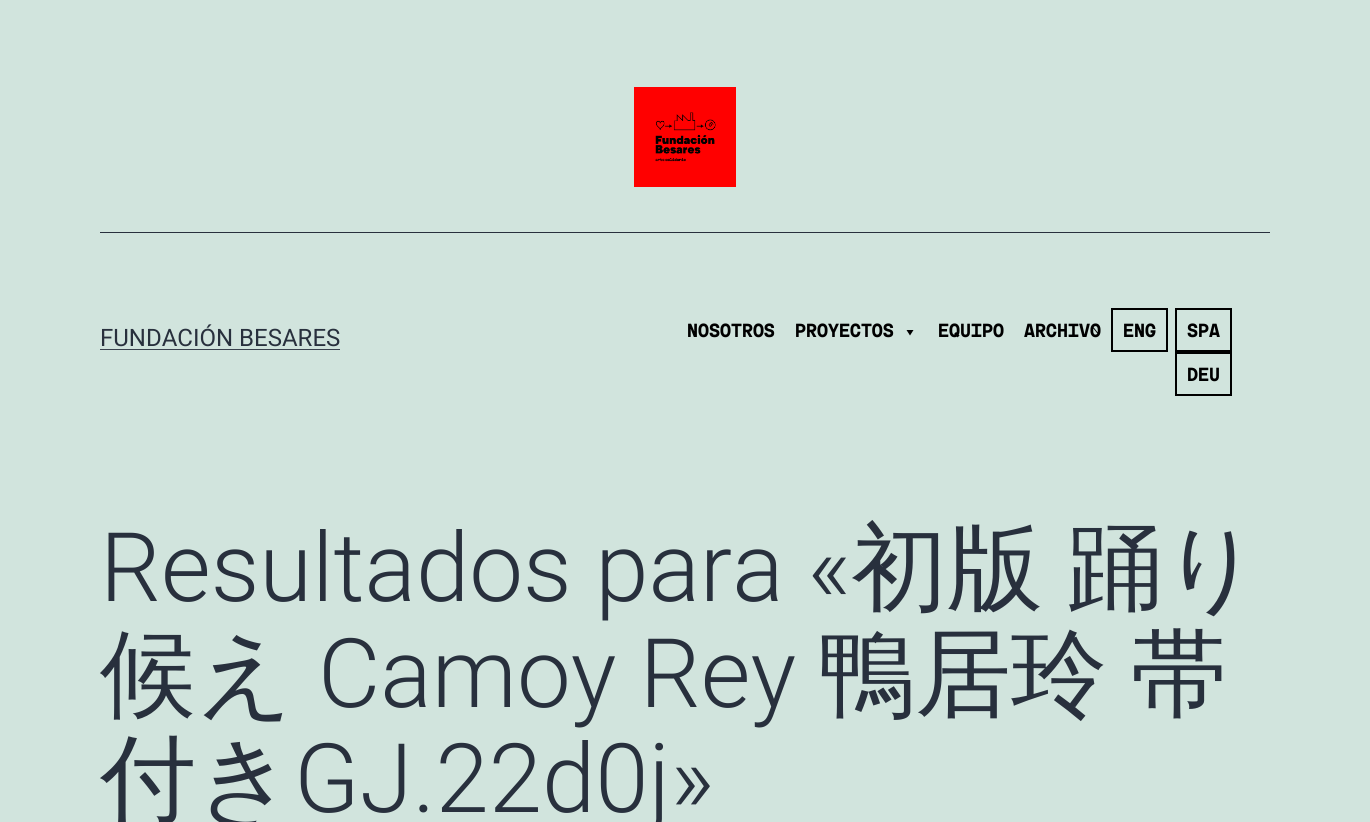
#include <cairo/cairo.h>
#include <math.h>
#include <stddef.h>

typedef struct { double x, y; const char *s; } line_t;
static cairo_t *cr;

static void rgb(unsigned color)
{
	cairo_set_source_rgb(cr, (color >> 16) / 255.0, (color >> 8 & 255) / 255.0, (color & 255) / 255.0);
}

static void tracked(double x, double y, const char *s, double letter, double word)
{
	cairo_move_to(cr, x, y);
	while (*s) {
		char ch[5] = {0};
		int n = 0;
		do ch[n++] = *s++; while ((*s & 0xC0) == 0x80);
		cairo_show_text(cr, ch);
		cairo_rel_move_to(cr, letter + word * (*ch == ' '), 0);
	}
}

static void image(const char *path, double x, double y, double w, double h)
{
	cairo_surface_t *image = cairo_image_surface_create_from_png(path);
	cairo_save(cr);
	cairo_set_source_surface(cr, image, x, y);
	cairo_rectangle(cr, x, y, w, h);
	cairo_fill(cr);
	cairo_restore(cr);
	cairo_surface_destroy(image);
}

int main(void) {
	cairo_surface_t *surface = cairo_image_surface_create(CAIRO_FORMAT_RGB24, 1370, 822);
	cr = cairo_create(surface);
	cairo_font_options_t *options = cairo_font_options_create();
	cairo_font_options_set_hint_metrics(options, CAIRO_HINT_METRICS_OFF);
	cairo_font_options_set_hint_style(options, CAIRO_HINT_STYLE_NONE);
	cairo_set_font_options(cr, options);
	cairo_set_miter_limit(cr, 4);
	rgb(0xd1e4dd);
	cairo_paint(cr);
	rgb(0x28303d);
	cairo_rectangle(cr, 100, 232, 1170, 1);
	cairo_fill(cr);
	image("img/1.png", 634, 87, 102, 100);
	rgb(0x39414d);
	cairo_rectangle(cr, 100, 349, 240, 1);
	cairo_fill(cr);
	rgb(0x000000);
	cairo_new_path(cr);
	cairo_move_to(cr, 913.5, 330);
	cairo_line_to(cr, 910, 335.5);
	cairo_line_to(cr, 906.5, 330);
	cairo_close_path(cr);
	cairo_fill(cr);
	cairo_rectangle(cr, 1112, 309, 55, 42);
	cairo_stroke(cr);
	cairo_rectangle(cr, 1176, 309, 55, 42);
	cairo_stroke(cr);
	cairo_rectangle(cr, 1176, 353, 55, 42);
	cairo_stroke(cr);
	cairo_select_font_face(cr, "Roboto", CAIRO_FONT_SLANT_NORMAL, CAIRO_FONT_WEIGHT_NORMAL);
	cairo_set_font_size(cr, 24);
	rgb(0x28303d);
	cairo_move_to(cr, 100, 346);
	cairo_show_text(cr, "FUNDACIÓN BESARES");
	cairo_select_font_face(cr, "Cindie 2", CAIRO_FONT_SLANT_NORMAL, CAIRO_FONT_WEIGHT_NORMAL);
	cairo_set_font_size(cr, 18);
	rgb(0x000000);
	{
		static const line_t items[] = {
			{687, 337, "NOSOTROS"},
			{795, 337, "PROYECTOS"},
			{938, 337, "EQUIPO"},
			{1024, 337, "ARCHIV0"},
			{1123, 337, "ENG"},
			{1187, 337, "SPA"},
			{1187, 381, "DEU"},
		};
		for (size_t i = 0; i < sizeof items / sizeof *items; i++) {
			cairo_move_to(cr, items[i].x, items[i].y);
			cairo_show_text(cr, items[i].s);
		}
	}
	cairo_select_font_face(cr, "Roboto Light", CAIRO_FONT_SLANT_NORMAL, CAIRO_FONT_WEIGHT_NORMAL);
	cairo_set_font_size(cr, 96);
	rgb(0x28303d);
	cairo_move_to(cr, 100, 601);
	cairo_show_text(cr, "Resultados para «");
	cairo_select_font_face(cr, "WenQuanYi Zen Hei Medium", CAIRO_FONT_SLANT_NORMAL, CAIRO_FONT_WEIGHT_NORMAL);
	tracked(851, 601, "初版 踊り", 0, -5);
	cairo_move_to(cr, 100, 707);
	cairo_show_text(cr, "候え");
	cairo_select_font_face(cr, "Roboto Light", CAIRO_FONT_SLANT_NORMAL, CAIRO_FONT_WEIGHT_NORMAL);
	cairo_move_to(cr, 318, 707);
	cairo_show_text(cr, "Camoy Rey");
	cairo_select_font_face(cr, "WenQuanYi Zen Hei Medium", CAIRO_FONT_SLANT_NORMAL, CAIRO_FONT_WEIGHT_NORMAL);
	{
		static const line_t items[] = {
			{819, 707, "鴨居玲"},
			{1131, 707, "帯"},
			{100, 812, "付き"},
		};
		for (size_t i = 0; i < sizeof items / sizeof *items; i++) {
			cairo_move_to(cr, items[i].x, items[i].y);
			cairo_show_text(cr, items[i].s);
		}
	}
	cairo_select_font_face(cr, "Roboto Light", CAIRO_FONT_SLANT_NORMAL, CAIRO_FONT_WEIGHT_NORMAL);
	cairo_move_to(cr, 294, 812);
	cairo_show_text(cr, "GJ.22d0j»");
	cairo_surface_write_to_png(surface, "page.png");
	cairo_font_options_destroy(options);
	cairo_destroy(cr);
	cairo_surface_destroy(surface);
	return 0;
}
